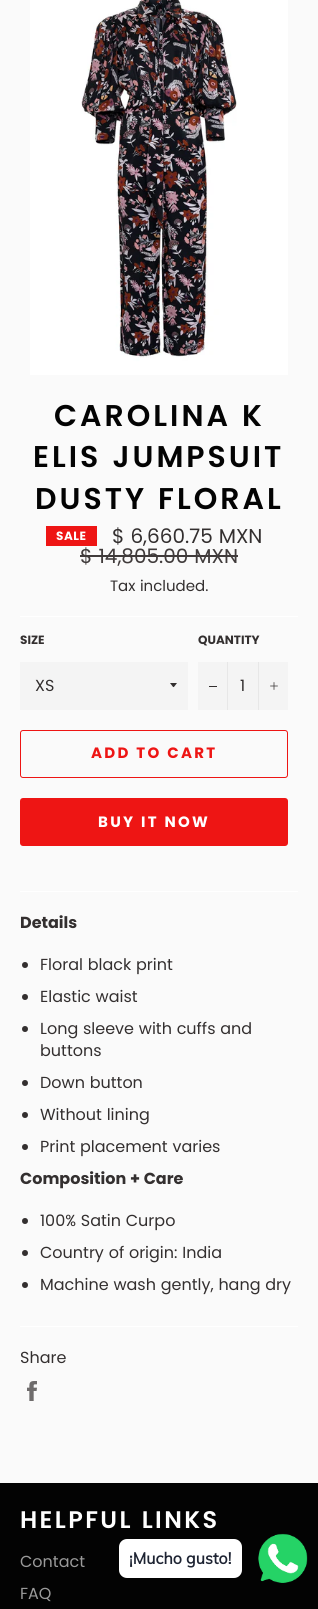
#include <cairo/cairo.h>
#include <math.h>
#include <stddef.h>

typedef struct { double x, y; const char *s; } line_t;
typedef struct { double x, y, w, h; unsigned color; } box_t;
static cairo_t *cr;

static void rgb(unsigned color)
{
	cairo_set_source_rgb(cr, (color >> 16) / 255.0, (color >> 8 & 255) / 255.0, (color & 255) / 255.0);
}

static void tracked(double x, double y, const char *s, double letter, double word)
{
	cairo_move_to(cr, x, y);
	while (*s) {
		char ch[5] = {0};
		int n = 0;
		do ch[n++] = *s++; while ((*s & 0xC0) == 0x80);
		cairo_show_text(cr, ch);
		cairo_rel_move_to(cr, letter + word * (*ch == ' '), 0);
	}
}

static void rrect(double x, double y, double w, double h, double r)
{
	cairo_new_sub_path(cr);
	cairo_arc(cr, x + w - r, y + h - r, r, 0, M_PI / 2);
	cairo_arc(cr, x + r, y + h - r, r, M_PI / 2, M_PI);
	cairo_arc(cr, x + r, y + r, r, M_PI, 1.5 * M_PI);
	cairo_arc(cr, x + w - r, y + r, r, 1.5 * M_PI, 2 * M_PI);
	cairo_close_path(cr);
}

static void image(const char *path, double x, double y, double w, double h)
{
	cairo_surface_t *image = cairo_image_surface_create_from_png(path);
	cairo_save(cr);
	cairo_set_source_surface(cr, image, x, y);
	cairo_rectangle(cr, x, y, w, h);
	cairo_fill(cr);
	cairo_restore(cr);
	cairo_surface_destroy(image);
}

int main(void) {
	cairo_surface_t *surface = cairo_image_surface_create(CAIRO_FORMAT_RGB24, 318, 1609);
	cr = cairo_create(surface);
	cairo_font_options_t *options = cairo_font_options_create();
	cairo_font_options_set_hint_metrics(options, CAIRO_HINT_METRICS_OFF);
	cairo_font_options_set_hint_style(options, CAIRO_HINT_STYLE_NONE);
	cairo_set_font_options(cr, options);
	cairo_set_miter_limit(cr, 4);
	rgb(0xfafafa);
	cairo_paint(cr);
	image("img/1.png", 30, 0, 258, 375);
	{
		static const box_t items[] = {
			{46, 526, 51, 20, 0xee1514},
			{80, 555, 158, 2, 0x403b3b},
			{20, 616, 278, 1, 0xffffff},
			{20, 662, 168, 48, 0xf4f4f4},
		};
		for (size_t i = 0; i < sizeof items / sizeof *items; i++) {
			rgb(items[i].color);
			cairo_rectangle(cr, items[i].x, items[i].y, items[i].w, items[i].h);
			cairo_fill(cr);
		}
	}
	rgb(0x332f2f);
	cairo_new_path(cr);
	cairo_move_to(cr, 170, 683);
	cairo_curve_to(cr, 174.5, 688.5, 172.5, 688.5, 177, 683);
	cairo_close_path(cr);
	cairo_fill(cr);
	{
		static const box_t items[] = {
			{198, 662, 90, 48, 0xf4f4f4},
			{227, 662, 1, 48, 0xe7e7e7},
			{209, 686, 8, 1, 0x332f2f},
			{258, 662, 1, 48, 0xe7e7e7},
		};
		for (size_t i = 0; i < sizeof items / sizeof *items; i++) {
			rgb(items[i].color);
			cairo_rectangle(cr, items[i].x, items[i].y, items[i].w, items[i].h);
			cairo_fill(cr);
		}
	}
	image("img/2.png", 270, 682, 8, 8);
	rrect(20.5, 730.5, 267, 47, 2.5);
	rgb(0xee1514);
	cairo_set_line_width(cr, 1);
	cairo_stroke(cr);
	rrect(20, 798, 268, 48, 3);
	cairo_fill(cr);
	rgb(0xffffff);
	cairo_rectangle(cr, 20, 891, 278, 1);
	cairo_fill(cr);
	rgb(0x332f2f);
	cairo_arc(cr, 25, 965, 3, 0, 2 * M_PI);
	cairo_fill(cr);
	cairo_arc(cr, 25, 997, 3, 0, 2 * M_PI);
	cairo_fill(cr);
	cairo_arc(cr, 25, 1029, 3, 0, 2 * M_PI);
	cairo_fill(cr);
	cairo_arc(cr, 25, 1083, 3, 0, 2 * M_PI);
	cairo_fill(cr);
	cairo_arc(cr, 25, 1115, 3, 0, 2 * M_PI);
	cairo_fill(cr);
	cairo_arc(cr, 25, 1147, 3, 0, 2 * M_PI);
	cairo_fill(cr);
	cairo_arc(cr, 25, 1221, 3, 0, 2 * M_PI);
	cairo_fill(cr);
	cairo_arc(cr, 25, 1253, 3, 0, 2 * M_PI);
	cairo_fill(cr);
	cairo_arc(cr, 25, 1285, 3, 0, 2 * M_PI);
	cairo_fill(cr);
	rgb(0xffffff);
	cairo_rectangle(cr, 20, 1326, 278, 1);
	cairo_fill(cr);
	image("img/3.png", 27, 1381, 10, 20);
	rgb(0x030303);
	cairo_rectangle(cr, 0, 1483, 318, 126);
	cairo_fill(cr);
	image("img/4.png", 258, 1533, 50, 50);
	rgb(0xffffff);
	rrect(119, 1539, 123, 39, 8);
	cairo_fill(cr);
	cairo_select_font_face(cr, "Poppins SemiBold", CAIRO_FONT_SLANT_NORMAL, CAIRO_FONT_WEIGHT_NORMAL);
	cairo_set_font_size(cr, 30);
	rgb(0x030303);
	{
		static const line_t items[] = {
			{54, 426, "CAROLINA K"},
			{33, 467, "ELIS JUMPSUIT"},
			{35, 509, "DUSTY FLORAL"},
		};
		for (size_t i = 0; i < sizeof items / sizeof *items; i++) {
			tracked(items[i].x, items[i].y, items[i].s, 3, 0);
		}
	}
	cairo_select_font_face(cr, "Poppins", CAIRO_FONT_SLANT_NORMAL, CAIRO_FONT_WEIGHT_BOLD);
	cairo_set_font_size(cr, 12);
	rgb(0xffffff);
	tracked(56, 540, "SALE", 0.5, 0);
	cairo_select_font_face(cr, "Poppins", CAIRO_FONT_SLANT_NORMAL, CAIRO_FONT_WEIGHT_NORMAL);
	cairo_set_font_size(cr, 20);
	rgb(0x332f2f);
	cairo_move_to(cr, 112, 543);
	cairo_show_text(cr, "$ 6,660.75 MXN");
	rgb(0x403b3b);
	cairo_move_to(cr, 80, 563);
	cairo_show_text(cr, "$ 14,805.00 MXN");
	cairo_set_font_size(cr, 15);
	rgb(0x332f2f);
	cairo_move_to(cr, 110, 591);
	cairo_show_text(cr, "Tax included.");
	cairo_select_font_face(cr, "Poppins", CAIRO_FONT_SLANT_NORMAL, CAIRO_FONT_WEIGHT_BOLD);
	cairo_set_font_size(cr, 12);
	cairo_move_to(cr, 20, 644);
	cairo_show_text(cr, "SIZE");
	cairo_select_font_face(cr, "Poppins", CAIRO_FONT_SLANT_NORMAL, CAIRO_FONT_WEIGHT_NORMAL);
	cairo_set_font_size(cr, 16);
	cairo_move_to(cr, 35, 691);
	cairo_show_text(cr, "XS");
	cairo_select_font_face(cr, "Poppins", CAIRO_FONT_SLANT_NORMAL, CAIRO_FONT_WEIGHT_BOLD);
	cairo_set_font_size(cr, 12);
	cairo_move_to(cr, 198, 644);
	cairo_show_text(cr, "QUANTITY");
	cairo_select_font_face(cr, "Poppins", CAIRO_FONT_SLANT_NORMAL, CAIRO_FONT_WEIGHT_NORMAL);
	cairo_set_font_size(cr, 16);
	cairo_move_to(cr, 240, 691);
	cairo_show_text(cr, "1");
	cairo_select_font_face(cr, "Poppins", CAIRO_FONT_SLANT_NORMAL, CAIRO_FONT_WEIGHT_BOLD);
	cairo_set_font_size(cr, 15);
	rgb(0xee1514);
	tracked(91, 758, "ADD TO CART", 2.25, 0);
	rgb(0xffffff);
	tracked(98, 827, "BUY IT NOW", 2.25, 0);
	cairo_set_font_size(cr, 16);
	rgb(0x332f2f);
	cairo_move_to(cr, 20, 928);
	cairo_show_text(cr, "Details");
	cairo_select_font_face(cr, "Poppins", CAIRO_FONT_SLANT_NORMAL, CAIRO_FONT_WEIGHT_NORMAL);
	{
		static const line_t items[] = {
			{40, 970, "Floral black print"},
			{40, 1002, "Elastic waist"},
			{40, 1034, "Long sleeve with cuffs and"},
			{40, 1056, "buttons"},
			{40, 1088, "Down button"},
			{40, 1120, "Without lining"},
			{40, 1152, "Print placement varies"},
		};
		for (size_t i = 0; i < sizeof items / sizeof *items; i++) {
			cairo_move_to(cr, items[i].x, items[i].y);
			cairo_show_text(cr, items[i].s);
		}
	}
	cairo_select_font_face(cr, "Poppins", CAIRO_FONT_SLANT_NORMAL, CAIRO_FONT_WEIGHT_BOLD);
	cairo_move_to(cr, 20, 1184);
	cairo_show_text(cr, "Composition + Care");
	cairo_select_font_face(cr, "Poppins", CAIRO_FONT_SLANT_NORMAL, CAIRO_FONT_WEIGHT_NORMAL);
	{
		static const line_t items[] = {
			{40, 1226, "100% Satin Curpo"},
			{40, 1258, "Country of origin: India"},
			{40, 1290, "Machine wash gently, hang dry"},
			{20, 1363, "Share"},
		};
		for (size_t i = 0; i < sizeof items / sizeof *items; i++) {
			cairo_move_to(cr, items[i].x, items[i].y);
			cairo_show_text(cr, items[i].s);
		}
	}
	cairo_select_font_face(cr, "Poppins SemiBold", CAIRO_FONT_SLANT_NORMAL, CAIRO_FONT_WEIGHT_NORMAL);
	cairo_set_font_size(cr, 24);
	rgb(0xffffff);
	tracked(20, 1528, "HELPFUL LINKS", 2.4, 0);
	cairo_select_font_face(cr, "Poppins", CAIRO_FONT_SLANT_NORMAL, CAIRO_FONT_WEIGHT_NORMAL);
	cairo_set_font_size(cr, 16);
	rgb(0x9a9a9a);
	cairo_move_to(cr, 20, 1567);
	cairo_show_text(cr, "Contact");
	cairo_move_to(cr, 20, 1599);
	cairo_show_text(cr, "FAQ");
	cairo_select_font_face(cr, "Muli", CAIRO_FONT_SLANT_NORMAL, CAIRO_FONT_WEIGHT_BOLD);
	rgb(0x1e2433);
	cairo_move_to(cr, 129, 1564);
	cairo_show_text(cr, "¡Mucho gusto!");
	cairo_surface_write_to_png(surface, "page.png");
	cairo_font_options_destroy(options);
	cairo_destroy(cr);
	cairo_surface_destroy(surface);
	return 0;
}
